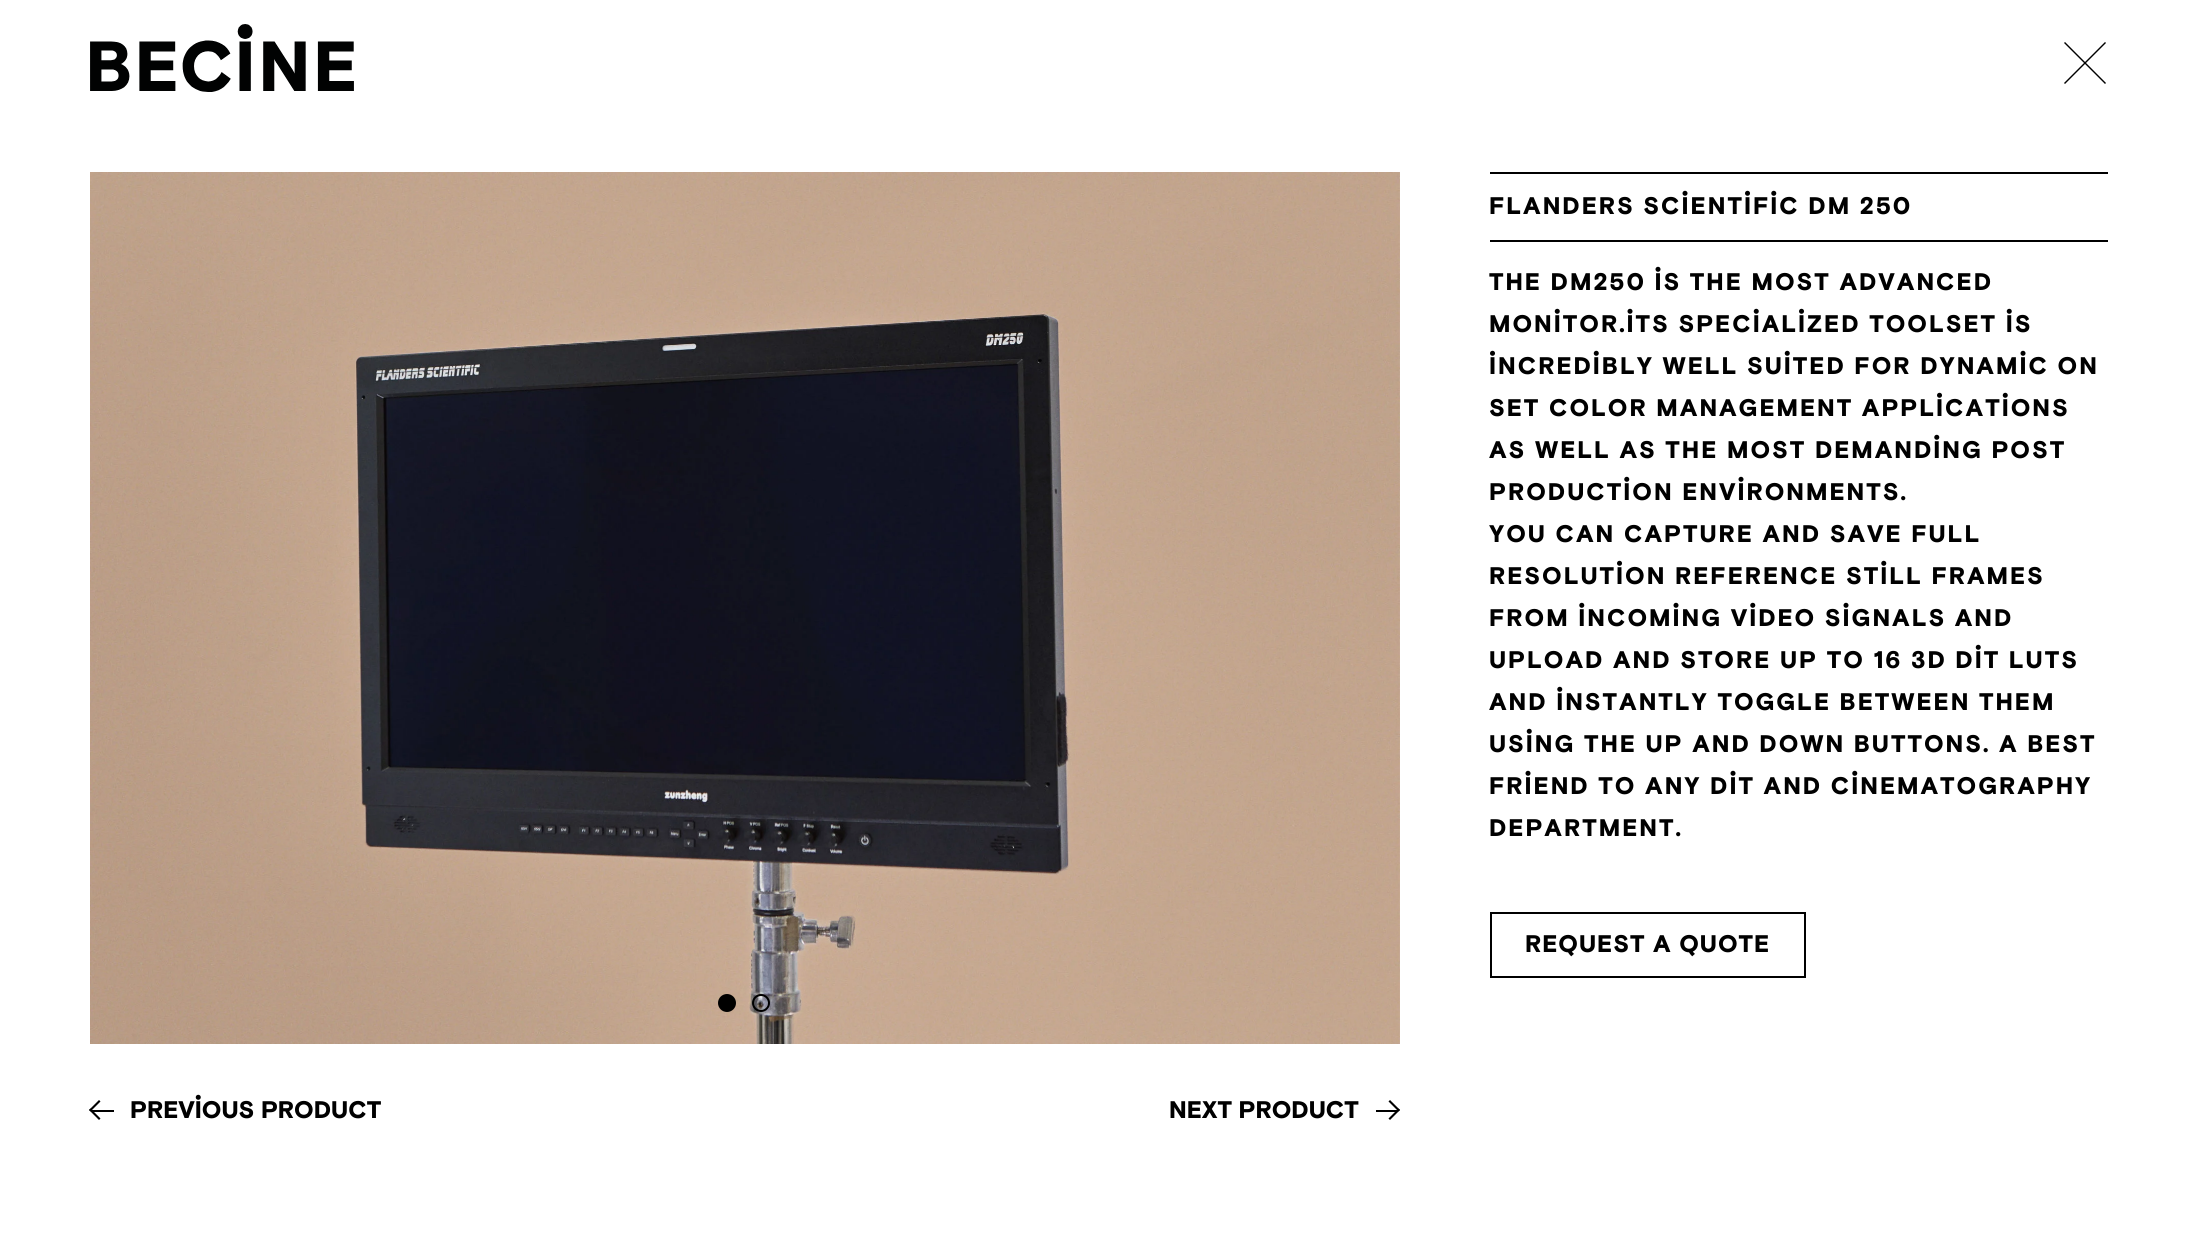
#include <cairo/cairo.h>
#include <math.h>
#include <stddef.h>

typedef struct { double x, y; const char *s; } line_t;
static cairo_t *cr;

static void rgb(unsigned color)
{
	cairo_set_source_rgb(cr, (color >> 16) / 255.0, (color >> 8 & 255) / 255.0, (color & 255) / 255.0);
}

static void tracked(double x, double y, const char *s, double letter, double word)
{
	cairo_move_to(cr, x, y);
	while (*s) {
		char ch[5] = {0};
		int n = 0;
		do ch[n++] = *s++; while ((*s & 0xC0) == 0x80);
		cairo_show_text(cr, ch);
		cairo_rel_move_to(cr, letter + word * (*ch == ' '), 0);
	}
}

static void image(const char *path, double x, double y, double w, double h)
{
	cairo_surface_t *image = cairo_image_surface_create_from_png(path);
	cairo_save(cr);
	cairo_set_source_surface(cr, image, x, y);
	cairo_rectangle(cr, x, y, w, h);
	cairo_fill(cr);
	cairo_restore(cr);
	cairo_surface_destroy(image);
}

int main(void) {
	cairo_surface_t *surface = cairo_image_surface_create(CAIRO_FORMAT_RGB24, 2198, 1246);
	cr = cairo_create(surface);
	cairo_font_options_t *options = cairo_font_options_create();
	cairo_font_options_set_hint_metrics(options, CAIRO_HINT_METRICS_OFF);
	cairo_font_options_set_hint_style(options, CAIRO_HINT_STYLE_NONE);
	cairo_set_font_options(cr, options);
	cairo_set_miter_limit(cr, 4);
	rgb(0xffffff);
	cairo_paint(cr);
	image("img/1.png", 90, 24, 264, 68);
	rgb(0x000000);
	cairo_new_path(cr);
	cairo_move_to(cr, 2065, 42);
	cairo_line_to(cr, 2106, 83);
	cairo_line_to(cr, 2105, 84);
	cairo_line_to(cr, 2064, 43);
	cairo_close_path(cr);
	cairo_fill(cr);
	cairo_new_path(cr);
	cairo_move_to(cr, 2064, 83);
	cairo_line_to(cr, 2105, 42);
	cairo_line_to(cr, 2106, 43);
	cairo_line_to(cr, 2065, 84);
	cairo_close_path(cr);
	cairo_fill(cr);
	cairo_rectangle(cr, 1490, 172, 618, 2);
	cairo_fill(cr);
	cairo_rectangle(cr, 1490, 240, 618, 2);
	cairo_fill(cr);
	cairo_rectangle(cr, 1491, 913, 314, 64);
	cairo_stroke(cr);
	image("img/2.png", 90, 172, 1310, 872);
	cairo_arc(cr, 727, 1003, 8, 0, 2 * M_PI);
	cairo_fill_preserve(cr);
	cairo_stroke(cr);
	cairo_arc(cr, 761, 1003, 8, 0, 2 * M_PI);
	cairo_stroke(cr);
	cairo_rectangle(cr, 92, 1110, 22, 2);
	cairo_fill(cr);
	cairo_new_path(cr);
	cairo_move_to(cr, 99, 1120);
	cairo_line_to(cr, 89, 1110);
	cairo_line_to(cr, 90.5, 1108.5);
	cairo_line_to(cr, 100.5, 1118.5);
	cairo_close_path(cr);
	cairo_fill(cr);
	cairo_new_path(cr);
	cairo_move_to(cr, 90.5, 1111.5);
	cairo_line_to(cr, 89, 1110);
	cairo_line_to(cr, 99, 1100);
	cairo_line_to(cr, 100.5, 1101.5);
	cairo_close_path(cr);
	cairo_fill(cr);
	cairo_rectangle(cr, 1376, 1110, 22, 2);
	cairo_fill(cr);
	cairo_new_path(cr);
	cairo_move_to(cr, 1390, 1100);
	cairo_line_to(cr, 1400, 1110);
	cairo_line_to(cr, 1398.5, 1111.5);
	cairo_line_to(cr, 1388.5, 1101.5);
	cairo_close_path(cr);
	cairo_fill(cr);
	cairo_new_path(cr);
	cairo_move_to(cr, 1398.5, 1108.5);
	cairo_line_to(cr, 1400, 1110);
	cairo_line_to(cr, 1390, 1120);
	cairo_line_to(cr, 1388.5, 1118.5);
	cairo_close_path(cr);
	cairo_fill(cr);
	cairo_select_font_face(cr, "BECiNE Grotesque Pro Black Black", CAIRO_FONT_SLANT_NORMAL, CAIRO_FONT_WEIGHT_NORMAL);
	cairo_set_font_size(cr, 24);
	{
		static const line_t items[] = {
			{1489, 214, "FLANDERS SCIENTIFIC DM 250"},
			{1489, 290, "THE DM250 IS THE MOST ADVANCED"},
			{1489, 332, "MONITOR.ITS SPECIALIZED TOOLSET IS"},
			{1489, 374, "INCREDIBLY WELL SUITED FOR DYNAMIC ON"},
			{1489, 416, "SET COLOR MANAGEMENT APPLICATIONS"},
			{1489, 458, "AS WELL AS THE MOST DEMANDING POST"},
			{1489, 500, "PRODUCTION ENVIRONMENTS."},
			{1489, 542, "YOU CAN CAPTURE AND SAVE FULL"},
			{1489, 584, "RESOLUTION REFERENCE STILL FRAMES"},
			{1489, 626, "FROM INCOMING VIDEO SIGNALS AND"},
			{1489, 668, "UPLOAD AND STORE UP TO 16 3D DIT LUTS"},
			{1489, 710, "AND INSTANTLY TOGGLE BETWEEN THEM"},
			{1489, 752, "USING THE UP AND DOWN BUTTONS. A BEST"},
			{1489, 794, "FRIEND TO ANY DIT AND CINEMATOGRAPHY"},
			{1489, 836, "DEPARTMENT."},
		};
		for (size_t i = 0; i < sizeof items / sizeof *items; i++) {
			tracked(items[i].x, items[i].y, items[i].s, 2, 0);
		}
	}
	tracked(1525, 952, "REQUEST A QUOTE", 1, 0);
	cairo_move_to(cr, 130, 1118);
	cairo_show_text(cr, "PREVIOUS PRODUCT");
	cairo_move_to(cr, 1169, 1118);
	cairo_show_text(cr, "NEXT PRODUCT");
	cairo_surface_write_to_png(surface, "page.png");
	cairo_font_options_destroy(options);
	cairo_destroy(cr);
	cairo_surface_destroy(surface);
	return 0;
}
